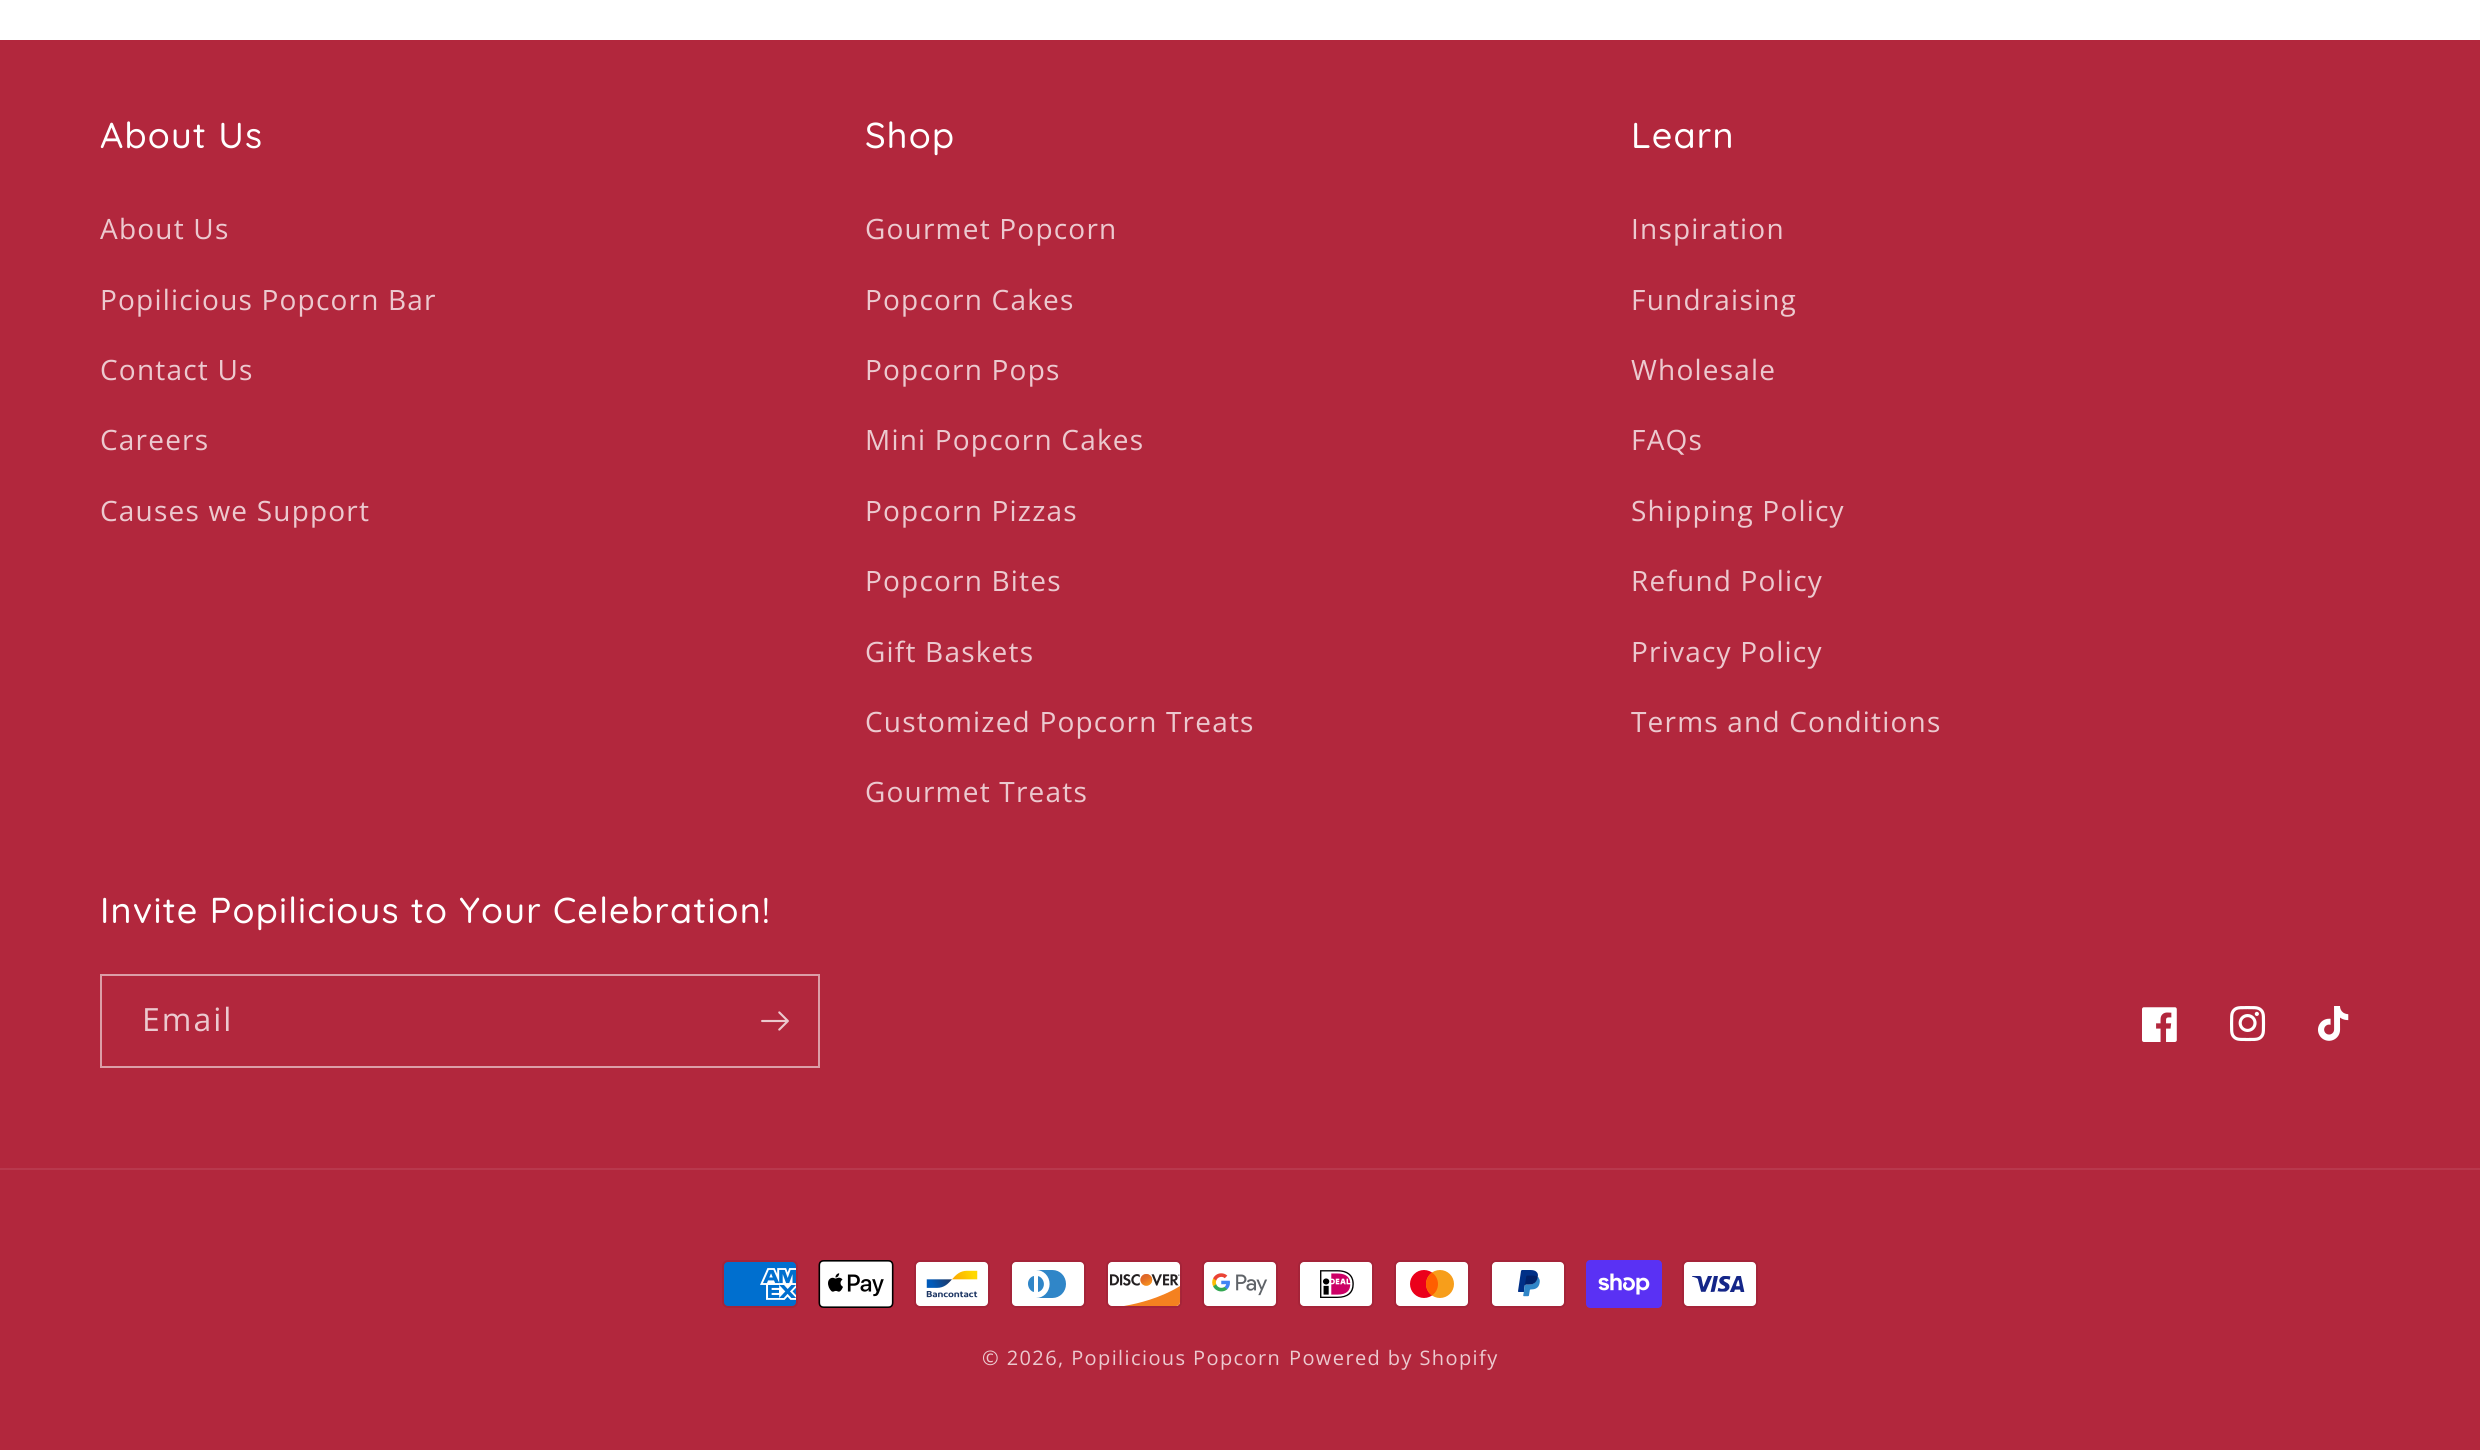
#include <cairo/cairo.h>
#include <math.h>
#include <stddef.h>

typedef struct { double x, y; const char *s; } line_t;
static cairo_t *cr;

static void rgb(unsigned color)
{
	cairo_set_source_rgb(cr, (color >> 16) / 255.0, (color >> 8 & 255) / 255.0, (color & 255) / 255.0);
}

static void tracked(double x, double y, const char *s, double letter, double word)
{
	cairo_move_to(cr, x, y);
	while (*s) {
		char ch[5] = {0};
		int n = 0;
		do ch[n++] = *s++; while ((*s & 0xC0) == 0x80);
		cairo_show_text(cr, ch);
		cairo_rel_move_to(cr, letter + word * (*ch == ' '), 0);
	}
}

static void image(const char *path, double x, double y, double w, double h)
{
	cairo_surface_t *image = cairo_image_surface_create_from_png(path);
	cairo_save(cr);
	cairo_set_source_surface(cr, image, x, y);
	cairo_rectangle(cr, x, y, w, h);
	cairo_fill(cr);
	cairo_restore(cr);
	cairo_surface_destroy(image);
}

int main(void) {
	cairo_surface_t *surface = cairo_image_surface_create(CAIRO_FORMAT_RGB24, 2480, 1450);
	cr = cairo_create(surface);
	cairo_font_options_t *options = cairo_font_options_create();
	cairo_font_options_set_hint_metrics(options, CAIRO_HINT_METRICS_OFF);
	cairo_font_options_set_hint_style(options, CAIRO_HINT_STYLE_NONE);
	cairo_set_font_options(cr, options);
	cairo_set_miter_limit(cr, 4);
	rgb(0xffffff);
	cairo_paint(cr);
	rgb(0xb2273d);
	cairo_rectangle(cr, 0, 40, 2480, 1410);
	cairo_fill(cr);
	cairo_rectangle(cr, 101, 975, 718, 92);
	rgb(0xdc9ea8);
	cairo_stroke(cr);
	image("img/1.png", 761, 1011, 28, 20);
	image("img/2.png", 2142, 1007, 35, 35);
	image("img/3.png", 2230, 1006, 36, 36);
	image("img/4.png", 2318, 1006, 31, 35);
	rgb(0xb8384d);
	cairo_rectangle(cr, 0, 1168, 2480, 2);
	cairo_fill(cr);
	image("img/5.png", 722, 1260, 76, 48);
	image("img/6.png", 818, 1260, 76, 48);
	image("img/7.png", 914, 1260, 76, 48);
	image("img/8.png", 1010, 1260, 76, 48);
	image("img/9.png", 1106, 1260, 76, 48);
	image("img/10.png", 1202, 1260, 76, 48);
	image("img/11.png", 1298, 1260, 76, 48);
	image("img/12.png", 1394, 1260, 76, 48);
	image("img/13.png", 1490, 1260, 76, 48);
	image("img/14.png", 1586, 1260, 76, 48);
	image("img/15.png", 1682, 1260, 76, 48);
	cairo_select_font_face(cr, "Quicksand Medium", CAIRO_FONT_SLANT_NORMAL, CAIRO_FONT_WEIGHT_NORMAL);
	cairo_set_font_size(cr, 36);
	rgb(0xffffff);
	tracked(100, 148, "About Us", 1.2, 0);
	cairo_select_font_face(cr, "Open Sans", CAIRO_FONT_SLANT_NORMAL, CAIRO_FONT_WEIGHT_NORMAL);
	cairo_set_font_size(cr, 28);
	rgb(0xecc9cf);
	{
		static const line_t items[] = {
			{100, 239, "About Us"},
			{100, 310, "Popilicious Popcorn Bar"},
			{100, 380, "Contact Us"},
			{100, 450, "Careers"},
			{100, 521, "Causes we Support"},
		};
		for (size_t i = 0; i < sizeof items / sizeof *items; i++) {
			tracked(items[i].x, items[i].y, items[i].s, 1.2, 0);
		}
	}
	cairo_select_font_face(cr, "Quicksand Medium", CAIRO_FONT_SLANT_NORMAL, CAIRO_FONT_WEIGHT_NORMAL);
	cairo_set_font_size(cr, 36);
	rgb(0xffffff);
	tracked(865, 148, "Shop", 1.2, 0);
	cairo_select_font_face(cr, "Open Sans", CAIRO_FONT_SLANT_NORMAL, CAIRO_FONT_WEIGHT_NORMAL);
	cairo_set_font_size(cr, 28);
	rgb(0xecc9cf);
	{
		static const line_t items[] = {
			{865, 239, "Gourmet Popcorn"},
			{865, 310, "Popcorn Cakes"},
			{865, 380, "Popcorn Pops"},
			{865, 450, "Mini Popcorn Cakes"},
			{865, 521, "Popcorn Pizzas"},
			{865, 591, "Popcorn Bites"},
			{865, 662, "Gift Baskets"},
			{865, 732, "Customized Popcorn Treats"},
			{865, 802, "Gourmet Treats"},
		};
		for (size_t i = 0; i < sizeof items / sizeof *items; i++) {
			tracked(items[i].x, items[i].y, items[i].s, 1.2, 0);
		}
	}
	cairo_select_font_face(cr, "Quicksand Medium", CAIRO_FONT_SLANT_NORMAL, CAIRO_FONT_WEIGHT_NORMAL);
	cairo_set_font_size(cr, 36);
	rgb(0xffffff);
	tracked(1631, 148, "Learn", 1.2, 0);
	cairo_select_font_face(cr, "Open Sans", CAIRO_FONT_SLANT_NORMAL, CAIRO_FONT_WEIGHT_NORMAL);
	cairo_set_font_size(cr, 28);
	rgb(0xecc9cf);
	{
		static const line_t items[] = {
			{1631, 239, "Inspiration"},
			{1631, 310, "Fundraising"},
			{1631, 380, "Wholesale"},
			{1631, 450, "FAQs"},
			{1631, 521, "Shipping Policy"},
			{1631, 591, "Refund Policy"},
			{1631, 662, "Privacy Policy"},
			{1631, 732, "Terms and Conditions"},
		};
		for (size_t i = 0; i < sizeof items / sizeof *items; i++) {
			tracked(items[i].x, items[i].y, items[i].s, 1.2, 0);
		}
	}
	cairo_select_font_face(cr, "Quicksand Medium", CAIRO_FONT_SLANT_NORMAL, CAIRO_FONT_WEIGHT_NORMAL);
	cairo_set_font_size(cr, 36);
	rgb(0xffffff);
	tracked(100, 923, "Invite Popilicious to Your Celebration!", 1.2, 0);
	cairo_select_font_face(cr, "Open Sans", CAIRO_FONT_SLANT_NORMAL, CAIRO_FONT_WEIGHT_NORMAL);
	cairo_set_font_size(cr, 32);
	rgb(0xecc9cf);
	tracked(142, 1031, "Email", 2, 0);
	cairo_set_font_size(cr, 20);
	tracked(982, 1365, "© 2026, Popilicious Popcorn", 1.4, 0);
	tracked(1289, 1365, "Powered by Shopify", 1.4, 0);
	cairo_surface_write_to_png(surface, "page.png");
	cairo_font_options_destroy(options);
	cairo_destroy(cr);
	cairo_surface_destroy(surface);
	return 0;
}
